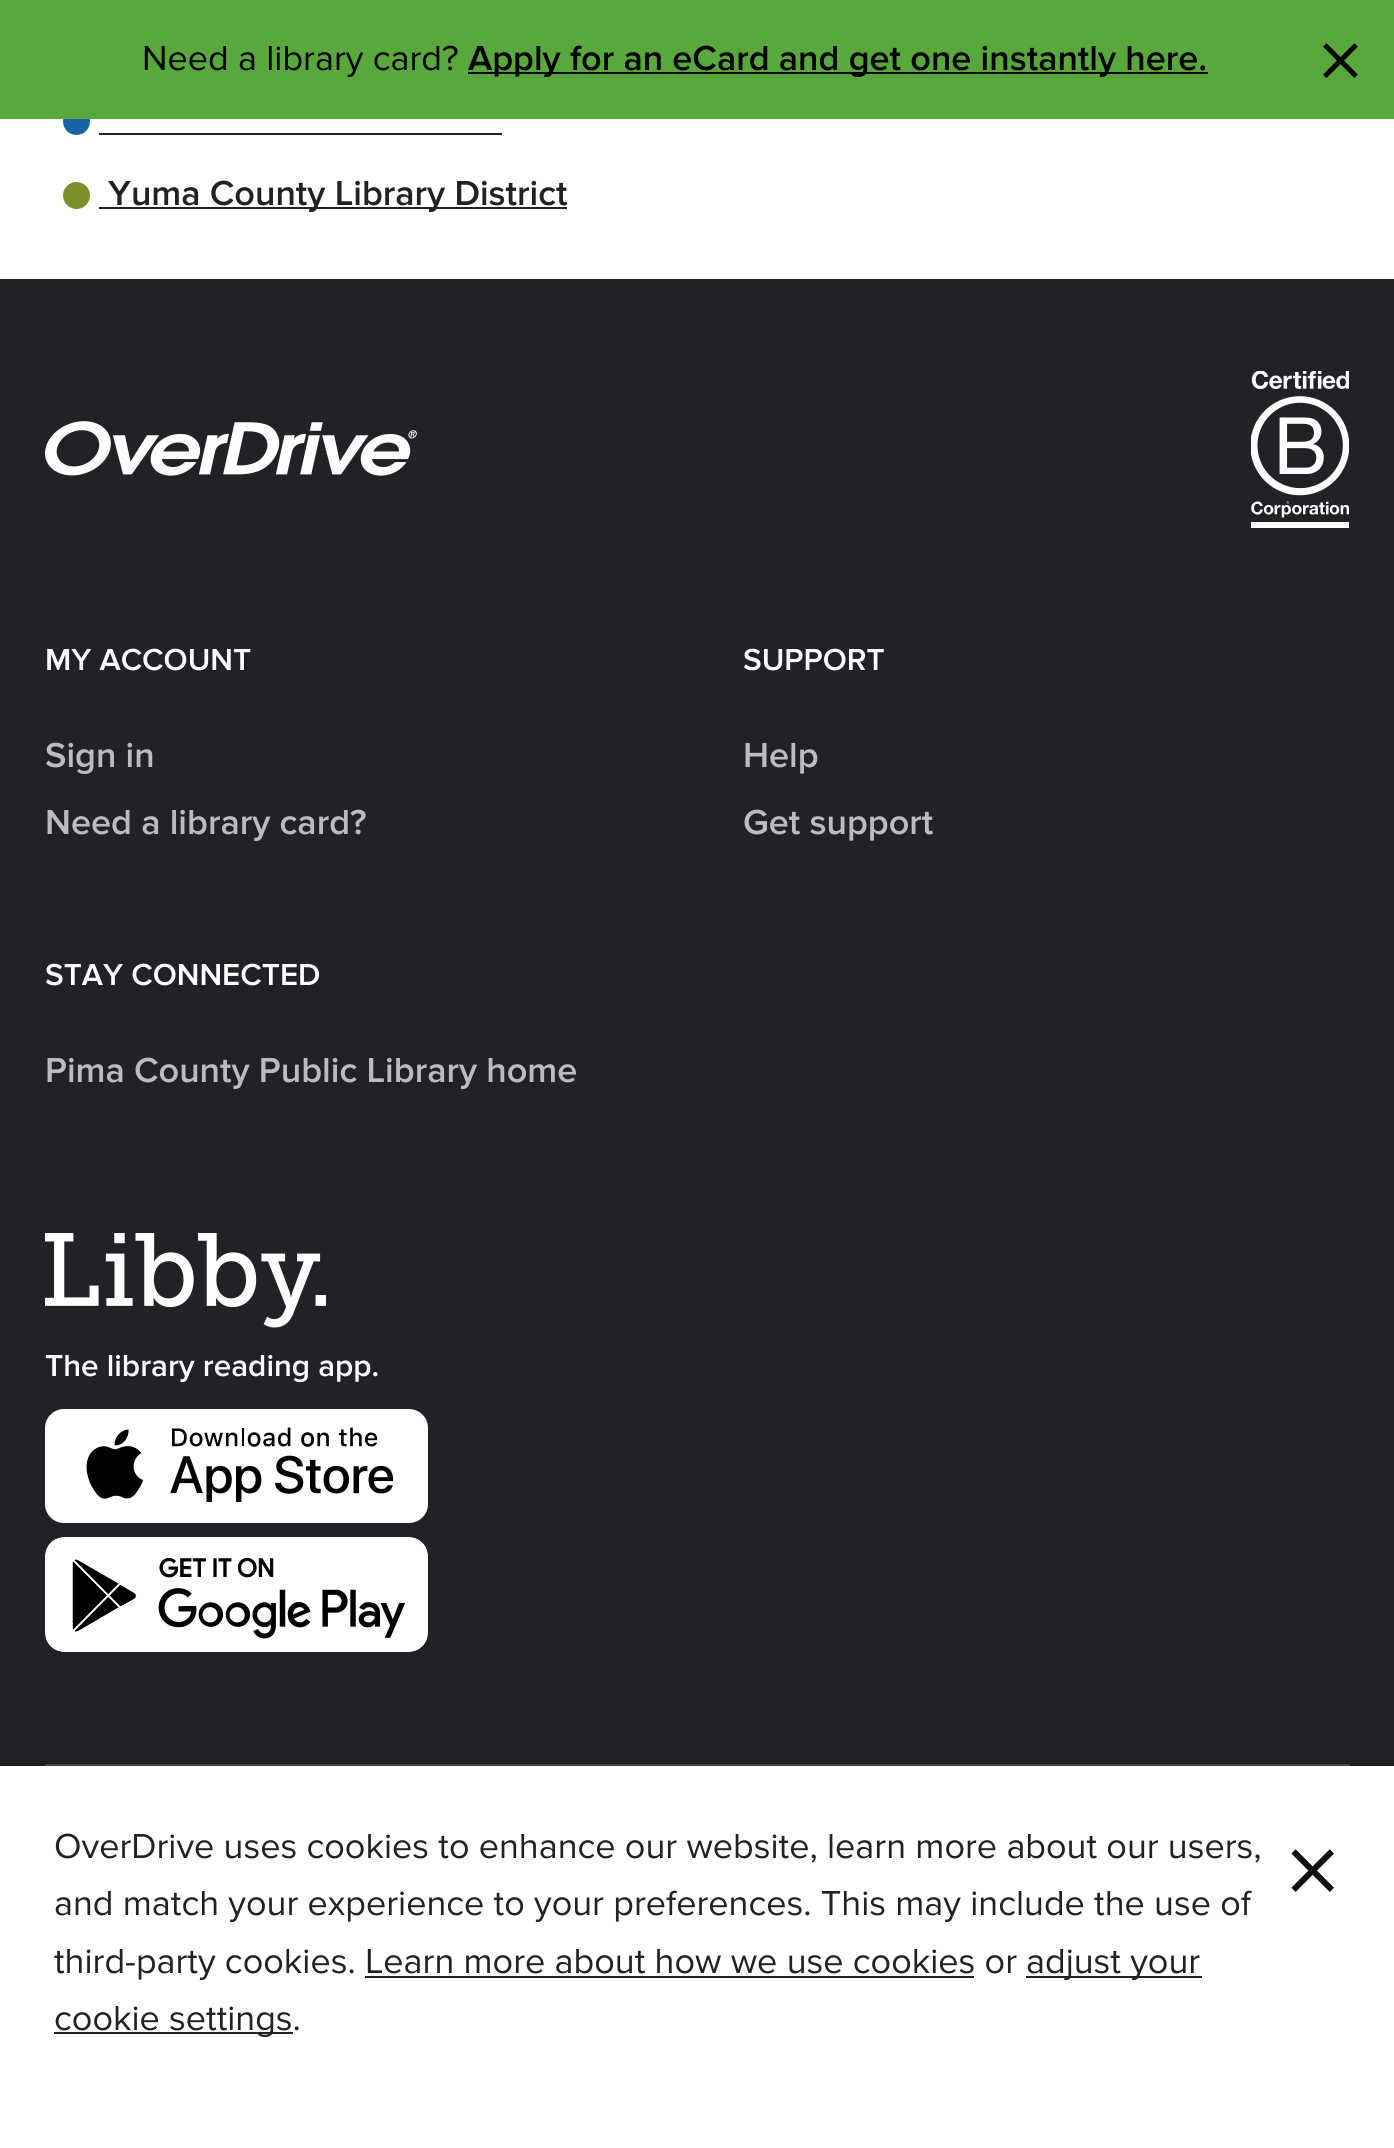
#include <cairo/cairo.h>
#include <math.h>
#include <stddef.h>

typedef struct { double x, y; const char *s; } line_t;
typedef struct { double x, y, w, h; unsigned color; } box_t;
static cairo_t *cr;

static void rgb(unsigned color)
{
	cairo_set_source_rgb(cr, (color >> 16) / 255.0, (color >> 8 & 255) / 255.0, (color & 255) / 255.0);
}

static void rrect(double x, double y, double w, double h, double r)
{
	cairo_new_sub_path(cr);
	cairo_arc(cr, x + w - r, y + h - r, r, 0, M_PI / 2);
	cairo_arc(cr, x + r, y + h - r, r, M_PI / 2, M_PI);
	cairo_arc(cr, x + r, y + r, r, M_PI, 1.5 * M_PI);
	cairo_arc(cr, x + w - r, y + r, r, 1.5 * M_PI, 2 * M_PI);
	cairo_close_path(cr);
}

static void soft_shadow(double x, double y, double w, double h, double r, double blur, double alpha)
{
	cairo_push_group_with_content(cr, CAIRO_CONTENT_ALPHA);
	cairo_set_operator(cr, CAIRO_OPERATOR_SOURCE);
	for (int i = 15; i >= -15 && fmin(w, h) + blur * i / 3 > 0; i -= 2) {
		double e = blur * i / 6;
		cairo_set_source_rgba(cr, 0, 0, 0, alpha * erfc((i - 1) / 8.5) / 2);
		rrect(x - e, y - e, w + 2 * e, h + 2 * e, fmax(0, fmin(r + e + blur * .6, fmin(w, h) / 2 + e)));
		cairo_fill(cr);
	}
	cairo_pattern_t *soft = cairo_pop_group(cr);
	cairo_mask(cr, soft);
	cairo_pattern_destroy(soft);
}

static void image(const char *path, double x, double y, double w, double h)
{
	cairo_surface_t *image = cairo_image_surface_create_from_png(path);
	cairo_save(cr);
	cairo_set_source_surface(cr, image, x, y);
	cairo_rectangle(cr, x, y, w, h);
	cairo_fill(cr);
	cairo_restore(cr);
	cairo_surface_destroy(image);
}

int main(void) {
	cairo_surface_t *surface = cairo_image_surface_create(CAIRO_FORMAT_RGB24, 1394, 2148);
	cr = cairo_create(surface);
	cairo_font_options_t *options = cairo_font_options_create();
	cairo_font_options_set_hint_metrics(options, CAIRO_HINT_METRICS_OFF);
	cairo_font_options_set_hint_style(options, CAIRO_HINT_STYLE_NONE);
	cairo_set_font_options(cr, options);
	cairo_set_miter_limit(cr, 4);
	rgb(0xffffff);
	cairo_paint(cr);
	rgb(0x1765a8);
	cairo_arc(cr, 76.5, 121.5, 13.5, 0, 2 * M_PI);
	cairo_fill(cr);
	{
		static const box_t items[] = {
			{0, 0, 1394, 119, 0x59a83c},
			{468, 72, 740, 2, 0x000000},
			{99, 133, 403, 2, 0x222222},
		};
		for (size_t i = 0; i < sizeof items / sizeof *items; i++) {
			rgb(items[i].color);
			cairo_rectangle(cr, items[i].x, items[i].y, items[i].w, items[i].h);
			cairo_fill(cr);
		}
	}
	rgb(0x7a902b);
	cairo_arc(cr, 76.5, 195.5, 13.5, 0, 2 * M_PI);
	cairo_fill(cr);
	rgb(0x222222);
	cairo_rectangle(cr, 99, 207, 468, 2);
	cairo_fill(cr);
	rgb(0x212127);
	cairo_rectangle(cr, 0, 279, 1394, 1487);
	cairo_fill(cr);
	image("img/1.png", 45, 421, 372, 55);
	image("img/2.png", 1251, 371, 98, 157);
	image("img/3.png", 45, 1233, 281, 95);
	image("img/4.png", 45, 1409, 383, 114);
	image("img/5.png", 45, 1537, 383, 115);
	rgb(0x4d4d52);
	cairo_rectangle(cr, 45, 1764, 1305, 2);
	cairo_fill(cr);
	rgb(0x000000);
	soft_shadow(-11, 1755, 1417, 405, 0, 5.5, 0.15);
	{
		static const box_t items[] = {
			{0, 1766, 1394, 382, 0xffffff},
			{365, 1976, 609, 2, 0x222222},
			{1026, 1976, 176, 2, 0x222222},
			{54, 2032, 239, 2, 0x222222},
		};
		for (size_t i = 0; i < sizeof items / sizeof *items; i++) {
			rgb(items[i].color);
			cairo_rectangle(cr, items[i].x, items[i].y, items[i].w, items[i].h);
			cairo_fill(cr);
		}
	}
	cairo_select_font_face(cr, "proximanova", CAIRO_FONT_SLANT_NORMAL, CAIRO_FONT_WEIGHT_NORMAL);
	cairo_set_font_size(cr, 36);
	rgb(0x000000);
	cairo_move_to(cr, 142, 70);
	cairo_show_text(cr, "Need a library card?");
	cairo_select_font_face(cr, "Proxima Nova SemiBold", CAIRO_FONT_SLANT_NORMAL, CAIRO_FONT_WEIGHT_NORMAL);
	cairo_move_to(cr, 468, 70);
	cairo_show_text(cr, "Apply for an eCard and get one instantly here.");
	cairo_select_font_face(cr, "proximanova", CAIRO_FONT_SLANT_NORMAL, CAIRO_FONT_WEIGHT_NORMAL);
	cairo_set_font_size(cr, 94);
	cairo_move_to(cr, 1317, 92);
	cairo_show_text(cr, "×");
	cairo_select_font_face(cr, "Proxima Nova SemiBold", CAIRO_FONT_SLANT_NORMAL, CAIRO_FONT_WEIGHT_NORMAL);
	cairo_set_font_size(cr, 36);
	rgb(0x222222);
	cairo_move_to(cr, 108, 205);
	cairo_show_text(cr, "Yuma County Library District");
	cairo_set_font_size(cr, 31.5);
	rgb(0xffffff);
	cairo_move_to(cr, 45, 670);
	cairo_show_text(cr, "MY ACCOUNT");
	cairo_set_font_size(cr, 36);
	rgb(0xbcbcbe);
	cairo_move_to(cr, 45, 767);
	cairo_show_text(cr, "Sign in");
	cairo_move_to(cr, 45, 834);
	cairo_show_text(cr, "Need a library card?");
	cairo_set_font_size(cr, 31.5);
	rgb(0xffffff);
	cairo_move_to(cr, 743, 670);
	cairo_show_text(cr, "SUPPORT");
	cairo_set_font_size(cr, 36);
	rgb(0xbcbcbe);
	cairo_move_to(cr, 743, 767);
	cairo_show_text(cr, "Help");
	cairo_move_to(cr, 743, 834);
	cairo_show_text(cr, "Get support");
	cairo_set_font_size(cr, 31.5);
	rgb(0xffffff);
	cairo_move_to(cr, 45, 985);
	cairo_show_text(cr, "STAY CONNECTED");
	cairo_set_font_size(cr, 36);
	rgb(0xbcbcbe);
	cairo_move_to(cr, 45, 1082);
	cairo_show_text(cr, "Pima County Public Library home");
	cairo_set_font_size(cr, 31.5);
	rgb(0xffffff);
	cairo_move_to(cr, 45, 1376);
	cairo_show_text(cr, "The library reading app.");
	cairo_select_font_face(cr, "proximanova", CAIRO_FONT_SLANT_NORMAL, CAIRO_FONT_WEIGHT_NORMAL);
	cairo_set_font_size(cr, 36);
	rgb(0x222222);
	{
		static const line_t items[] = {
			{54, 1858, "OverDrive uses cookies to enhance our website, learn more about our users,"},
			{54, 1915, "and match your experience to your preferences. This may include the use of"},
			{54, 1973, "third-party cookies. Learn more about how we use cookies or"},
			{1026, 1973, "adjust your"},
			{54, 2030, "cookie settings."},
		};
		for (size_t i = 0; i < sizeof items / sizeof *items; i++) {
			cairo_move_to(cr, items[i].x, items[i].y);
			cairo_show_text(cr, items[i].s);
		}
	}
	cairo_set_font_size(cr, 115);
	rgb(0x111111);
	cairo_move_to(cr, 1284, 1909);
	cairo_show_text(cr, "×");
	cairo_surface_write_to_png(surface, "page.png");
	cairo_font_options_destroy(options);
	cairo_destroy(cr);
	cairo_surface_destroy(surface);
	return 0;
}
